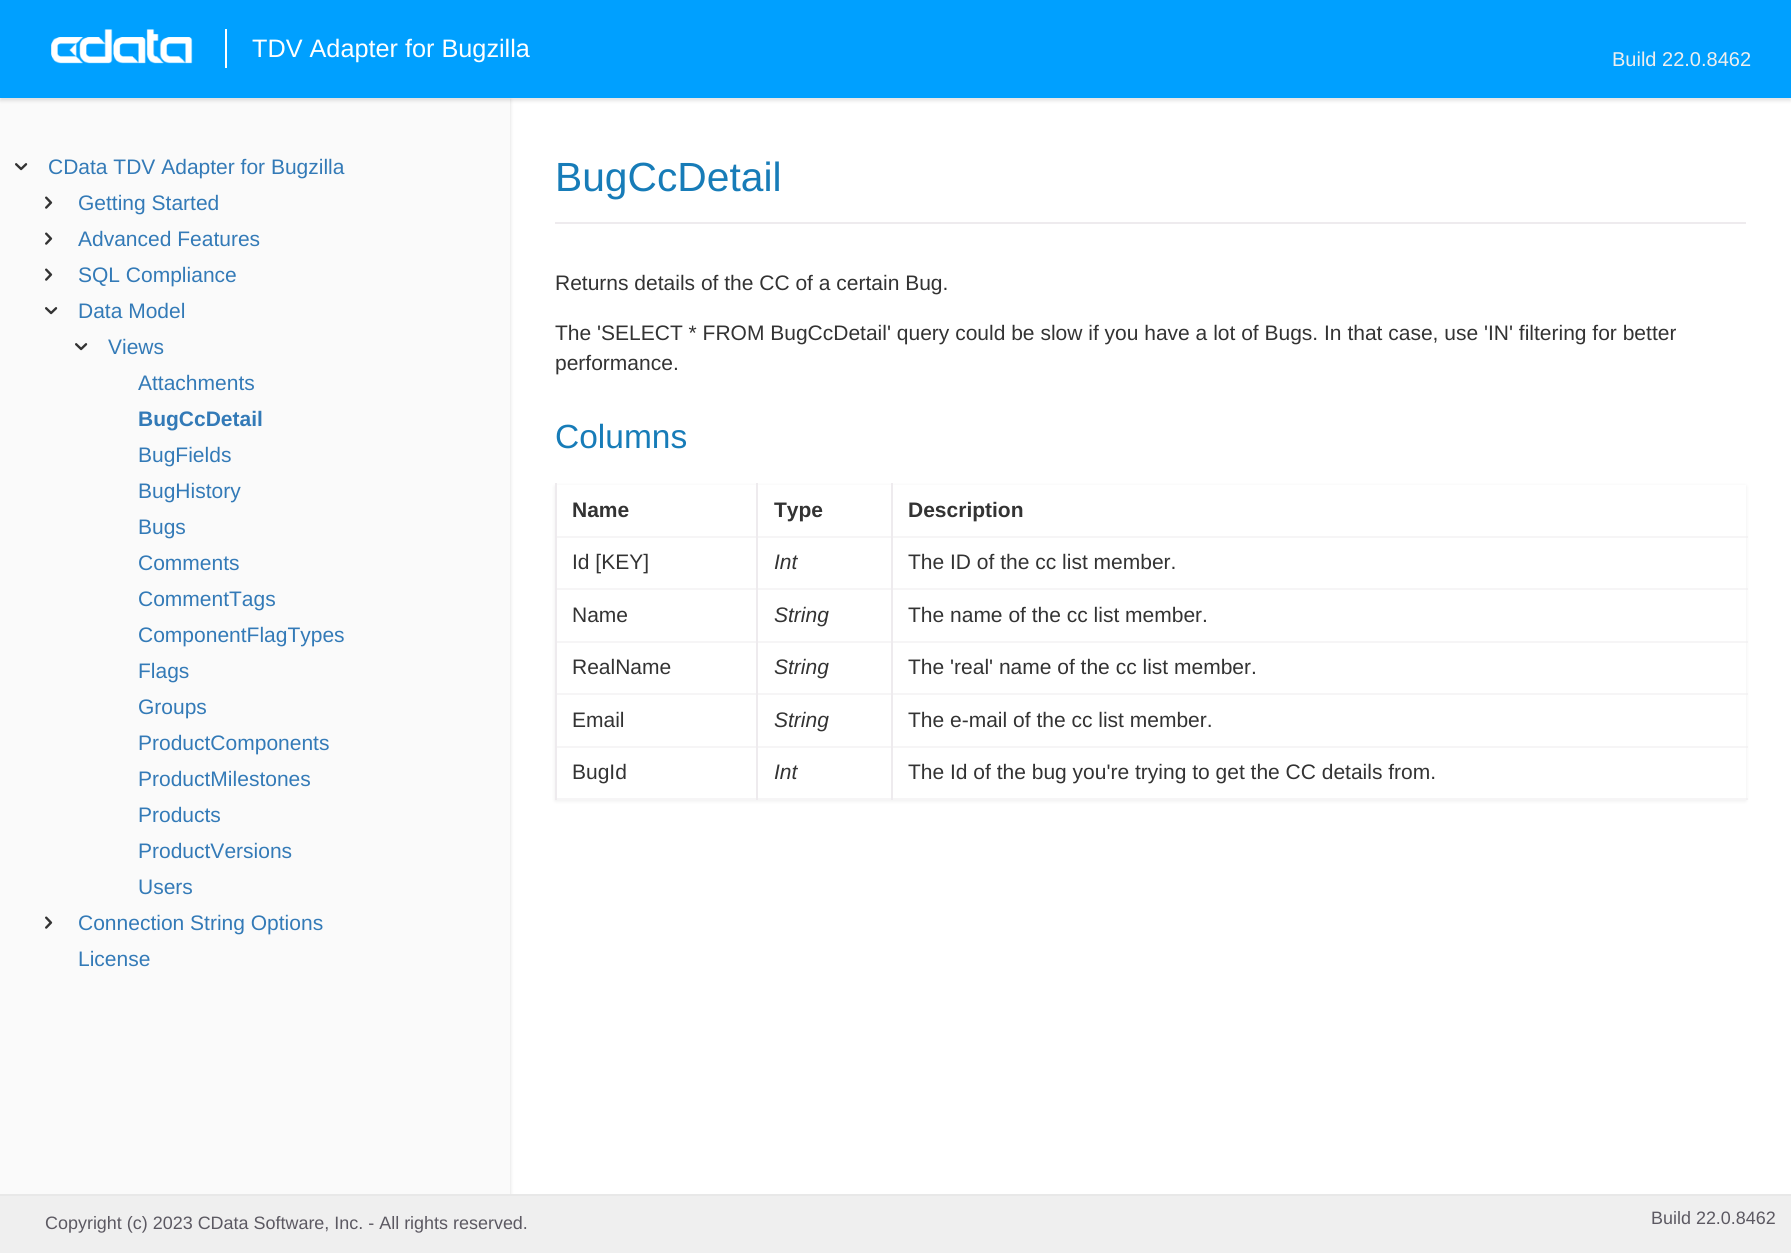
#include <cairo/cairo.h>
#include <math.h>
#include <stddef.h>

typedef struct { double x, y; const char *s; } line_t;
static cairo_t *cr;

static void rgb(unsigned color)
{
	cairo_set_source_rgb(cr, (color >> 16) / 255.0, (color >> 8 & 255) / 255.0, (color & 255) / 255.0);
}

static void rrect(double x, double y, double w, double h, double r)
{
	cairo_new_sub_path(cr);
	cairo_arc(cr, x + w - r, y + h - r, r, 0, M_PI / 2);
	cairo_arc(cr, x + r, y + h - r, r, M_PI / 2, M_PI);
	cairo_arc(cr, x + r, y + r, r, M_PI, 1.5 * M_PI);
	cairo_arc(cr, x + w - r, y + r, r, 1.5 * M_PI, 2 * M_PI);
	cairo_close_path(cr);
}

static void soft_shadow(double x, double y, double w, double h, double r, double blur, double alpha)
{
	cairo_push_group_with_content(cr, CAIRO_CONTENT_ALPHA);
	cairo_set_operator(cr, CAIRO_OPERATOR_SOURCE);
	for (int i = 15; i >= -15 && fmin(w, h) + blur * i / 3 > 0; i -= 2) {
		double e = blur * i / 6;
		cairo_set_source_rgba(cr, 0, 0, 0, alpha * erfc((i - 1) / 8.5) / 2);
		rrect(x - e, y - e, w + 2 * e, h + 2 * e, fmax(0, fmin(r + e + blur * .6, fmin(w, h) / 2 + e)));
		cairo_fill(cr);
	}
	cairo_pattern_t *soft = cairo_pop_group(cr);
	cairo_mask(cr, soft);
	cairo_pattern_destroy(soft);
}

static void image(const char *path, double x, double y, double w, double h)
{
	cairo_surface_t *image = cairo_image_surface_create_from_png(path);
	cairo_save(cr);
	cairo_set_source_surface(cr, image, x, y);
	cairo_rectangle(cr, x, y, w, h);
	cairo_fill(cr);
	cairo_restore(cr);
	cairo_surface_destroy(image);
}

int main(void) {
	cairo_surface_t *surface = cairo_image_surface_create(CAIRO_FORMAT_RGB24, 1791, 1253);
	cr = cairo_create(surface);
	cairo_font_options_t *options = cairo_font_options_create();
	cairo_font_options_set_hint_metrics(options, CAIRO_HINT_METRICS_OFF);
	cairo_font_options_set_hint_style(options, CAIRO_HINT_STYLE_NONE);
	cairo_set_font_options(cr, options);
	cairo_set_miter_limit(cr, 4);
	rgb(0xffffff);
	cairo_paint(cr);
	rgb(0x000000);
	soft_shadow(0, 99, 510, 1097, 0, 2, 0.15);
	rgb(0xfafafa);
	cairo_rectangle(cr, 0, 98, 510, 1096);
	cairo_fill(cr);
	rgb(0x000000);
	soft_shadow(0, 3, 1791, 98, 0, 1.5, 0.1);
	rgb(0x00a0ff);
	cairo_rectangle(cr, 0, 0, 1791, 98);
	cairo_fill(cr);
	image("img/1.png", 51, 29, 142, 35);
	rgb(0xffffff);
	cairo_rectangle(cr, 225, 29, 2, 39);
	cairo_fill(cr);
	image("img/2.png", 15, 163, 13, 8);
	image("img/3.png", 45, 196, 8, 13);
	image("img/3.png", 45, 232, 8, 13);
	image("img/3.png", 45, 268, 8, 13);
	image("img/2.png", 45, 307, 13, 8);
	image("img/2.png", 75, 343, 13, 8);
	image("img/3.png", 45, 916, 8, 13);
	rgb(0xeeebee);
	cairo_rectangle(cr, 555, 222, 1191, 2);
	cairo_fill(cr);
	cairo_save(cr);
	cairo_set_fill_rule(cr, CAIRO_FILL_RULE_EVEN_ODD);
	cairo_new_path(cr);
	cairo_move_to(cr, 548, 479);
	cairo_line_to(cr, 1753, 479);
	cairo_line_to(cr, 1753, 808);
	cairo_line_to(cr, 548, 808);
	cairo_close_path(cr);
	cairo_move_to(cr, 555, 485);
	cairo_line_to(cr, 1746, 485);
	cairo_line_to(cr, 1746, 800);
	cairo_line_to(cr, 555, 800);
	cairo_close_path(cr);
	cairo_clip(cr);
	rgb(0x000000);
	soft_shadow(555, 486, 1191, 315, 0, 2, 0.07);
	cairo_restore(cr);
	cairo_set_source_rgba(cr, 0.933, 0.922, 0.933, 0.5);
	cairo_rectangle(cr, 891, 798, 857, 2);
	cairo_fill(cr);
	rgb(0xeeebee);
	cairo_rectangle(cr, 891, 746, 2, 54);
	cairo_fill(cr);
	cairo_set_source_rgba(cr, 0.933, 0.922, 0.933, 0.5);
	cairo_rectangle(cr, 891, 746, 857, 2);
	cairo_fill(cr);
	rgb(0xeeebee);
	cairo_rectangle(cr, 891, 693, 2, 54);
	cairo_fill(cr);
	cairo_set_source_rgba(cr, 0.933, 0.922, 0.933, 0.5);
	cairo_rectangle(cr, 891, 693, 857, 2);
	cairo_fill(cr);
	rgb(0xeeebee);
	cairo_rectangle(cr, 891, 641, 2, 54);
	cairo_fill(cr);
	cairo_set_source_rgba(cr, 0.933, 0.922, 0.933, 0.5);
	cairo_rectangle(cr, 891, 641, 857, 2);
	cairo_fill(cr);
	rgb(0xeeebee);
	cairo_rectangle(cr, 891, 588, 2, 54);
	cairo_fill(cr);
	cairo_set_source_rgba(cr, 0.933, 0.922, 0.933, 0.5);
	cairo_rectangle(cr, 891, 588, 857, 2);
	cairo_fill(cr);
	rgb(0xeeebee);
	cairo_rectangle(cr, 891, 536, 2, 54);
	cairo_fill(cr);
	cairo_set_source_rgba(cr, 0.933, 0.922, 0.933, 0.5);
	cairo_rectangle(cr, 891, 536, 857, 2);
	cairo_fill(cr);
	rgb(0xeeebee);
	cairo_rectangle(cr, 891, 483, 2, 54);
	cairo_fill(cr);
	cairo_set_source_rgba(cr, 0.933, 0.922, 0.933, 0.5);
	cairo_rectangle(cr, 756, 798, 137, 2);
	cairo_fill(cr);
	rgb(0xeeebee);
	cairo_rectangle(cr, 756, 746, 2, 54);
	cairo_fill(cr);
	cairo_set_source_rgba(cr, 0.933, 0.922, 0.933, 0.5);
	cairo_rectangle(cr, 756, 746, 137, 2);
	cairo_fill(cr);
	rgb(0xeeebee);
	cairo_rectangle(cr, 756, 693, 2, 54);
	cairo_fill(cr);
	cairo_set_source_rgba(cr, 0.933, 0.922, 0.933, 0.5);
	cairo_rectangle(cr, 756, 693, 137, 2);
	cairo_fill(cr);
	rgb(0xeeebee);
	cairo_rectangle(cr, 756, 641, 2, 54);
	cairo_fill(cr);
	cairo_set_source_rgba(cr, 0.933, 0.922, 0.933, 0.5);
	cairo_rectangle(cr, 756, 641, 137, 2);
	cairo_fill(cr);
	rgb(0xeeebee);
	cairo_rectangle(cr, 756, 588, 2, 54);
	cairo_fill(cr);
	cairo_set_source_rgba(cr, 0.933, 0.922, 0.933, 0.5);
	cairo_rectangle(cr, 756, 588, 137, 2);
	cairo_fill(cr);
	rgb(0xeeebee);
	cairo_rectangle(cr, 756, 536, 2, 54);
	cairo_fill(cr);
	cairo_set_source_rgba(cr, 0.933, 0.922, 0.933, 0.5);
	cairo_rectangle(cr, 756, 536, 137, 2);
	cairo_fill(cr);
	rgb(0xeeebee);
	cairo_rectangle(cr, 756, 483, 2, 54);
	cairo_fill(cr);
	cairo_set_source_rgba(cr, 0.933, 0.922, 0.933, 0.5);
	cairo_rectangle(cr, 555, 798, 203, 2);
	cairo_fill(cr);
	rgb(0xeeebee);
	cairo_rectangle(cr, 555, 746, 2, 54);
	cairo_fill(cr);
	cairo_set_source_rgba(cr, 0.933, 0.922, 0.933, 0.5);
	cairo_rectangle(cr, 555, 746, 203, 2);
	cairo_fill(cr);
	rgb(0xeeebee);
	cairo_rectangle(cr, 555, 693, 2, 54);
	cairo_fill(cr);
	cairo_set_source_rgba(cr, 0.933, 0.922, 0.933, 0.5);
	cairo_rectangle(cr, 555, 693, 203, 2);
	cairo_fill(cr);
	rgb(0xeeebee);
	cairo_rectangle(cr, 555, 641, 2, 54);
	cairo_fill(cr);
	cairo_set_source_rgba(cr, 0.933, 0.922, 0.933, 0.5);
	cairo_rectangle(cr, 555, 641, 203, 2);
	cairo_fill(cr);
	rgb(0xeeebee);
	cairo_rectangle(cr, 555, 588, 2, 54);
	cairo_fill(cr);
	cairo_set_source_rgba(cr, 0.933, 0.922, 0.933, 0.5);
	cairo_rectangle(cr, 555, 588, 203, 2);
	cairo_fill(cr);
	rgb(0xeeebee);
	cairo_rectangle(cr, 555, 536, 2, 54);
	cairo_fill(cr);
	cairo_set_source_rgba(cr, 0.933, 0.922, 0.933, 0.5);
	cairo_rectangle(cr, 555, 536, 203, 2);
	cairo_fill(cr);
	rgb(0xeeebee);
	cairo_rectangle(cr, 555, 483, 2, 54);
	cairo_fill(cr);
	rgb(0xefefef);
	cairo_rectangle(cr, 0, 1196, 1791, 57);
	cairo_fill(cr);
	rgb(0xe8e8e8);
	cairo_rectangle(cr, 0, 1194, 1791, 2);
	cairo_fill(cr);
	cairo_select_font_face(cr, "Liberation Sans", CAIRO_FONT_SLANT_NORMAL, CAIRO_FONT_WEIGHT_NORMAL);
	cairo_set_font_size(cr, 25.25);
	rgb(0xffffff);
	cairo_move_to(cr, 252, 57);
	cairo_show_text(cr, "TDV Adapter for Bugzilla");
	cairo_set_font_size(cr, 20);
	rgb(0xefefef);
	cairo_move_to(cr, 1612, 66);
	cairo_show_text(cr, "Build 22.0.8462");
	cairo_set_font_size(cr, 21);
	rgb(0x337ab7);
	{
		static const line_t items[] = {
			{48, 174, "CData TDV Adapter for Bugzilla"},
			{78, 210, "Getting Started"},
			{78, 246, "Advanced Features"},
			{78, 282, "SQL Compliance"},
			{78, 318, "Data Model"},
			{108, 354, "Views"},
			{138, 390, "Attachments"},
		};
		for (size_t i = 0; i < sizeof items / sizeof *items; i++) {
			cairo_move_to(cr, items[i].x, items[i].y);
			cairo_show_text(cr, items[i].s);
		}
	}
	cairo_select_font_face(cr, "Liberation Sans", CAIRO_FONT_SLANT_NORMAL, CAIRO_FONT_WEIGHT_BOLD);
	cairo_move_to(cr, 138, 426);
	cairo_show_text(cr, "BugCcDetail");
	cairo_select_font_face(cr, "Liberation Sans", CAIRO_FONT_SLANT_NORMAL, CAIRO_FONT_WEIGHT_NORMAL);
	{
		static const line_t items[] = {
			{138, 462, "BugFields"},
			{138, 498, "BugHistory"},
			{138, 534, "Bugs"},
			{138, 570, "Comments"},
			{138, 606, "CommentTags"},
			{138, 642, "ComponentFlagTypes"},
			{138, 678, "Flags"},
			{138, 714, "Groups"},
			{138, 750, "ProductComponents"},
			{138, 786, "ProductMilestones"},
			{138, 822, "Products"},
			{138, 858, "ProductVersions"},
			{138, 894, "Users"},
			{78, 930, "Connection String Options"},
			{78, 966, "License"},
		};
		for (size_t i = 0; i < sizeof items / sizeof *items; i++) {
			cairo_move_to(cr, items[i].x, items[i].y);
			cairo_show_text(cr, items[i].s);
		}
	}
	cairo_set_font_size(cr, 40.75);
	rgb(0x177cb8);
	cairo_move_to(cr, 555, 191);
	cairo_show_text(cr, "BugCcDetail");
	cairo_set_font_size(cr, 21);
	rgb(0x333333);
	{
		static const line_t items[] = {
			{555, 290, "Returns details of the CC of a certain Bug."},
			{555, 340, "The 'SELECT * FROM BugCcDetail' query could be slow if you have a lot of Bugs. In that case, use 'IN' filtering for better"},
			{555, 370, "performance."},
		};
		for (size_t i = 0; i < sizeof items / sizeof *items; i++) {
			cairo_move_to(cr, items[i].x, items[i].y);
			cairo_show_text(cr, items[i].s);
		}
	}
	cairo_set_font_size(cr, 33.5);
	rgb(0x177cb8);
	cairo_move_to(cr, 555, 448);
	cairo_show_text(cr, "Columns");
	cairo_select_font_face(cr, "Liberation Sans", CAIRO_FONT_SLANT_NORMAL, CAIRO_FONT_WEIGHT_BOLD);
	cairo_set_font_size(cr, 21);
	rgb(0x333333);
	{
		static const line_t items[] = {
			{572, 517, "Name"},
			{774, 517, "Type"},
			{908, 517, "Description"},
		};
		for (size_t i = 0; i < sizeof items / sizeof *items; i++) {
			cairo_move_to(cr, items[i].x, items[i].y);
			cairo_show_text(cr, items[i].s);
		}
	}
	cairo_select_font_face(cr, "Liberation Sans", CAIRO_FONT_SLANT_NORMAL, CAIRO_FONT_WEIGHT_NORMAL);
	cairo_move_to(cr, 572, 569);
	cairo_show_text(cr, "Id [KEY]");
	cairo_select_font_face(cr, "Liberation Sans", CAIRO_FONT_SLANT_ITALIC, CAIRO_FONT_WEIGHT_NORMAL);
	cairo_move_to(cr, 774, 569);
	cairo_show_text(cr, "Int");
	cairo_select_font_face(cr, "Liberation Sans", CAIRO_FONT_SLANT_NORMAL, CAIRO_FONT_WEIGHT_NORMAL);
	cairo_move_to(cr, 908, 569);
	cairo_show_text(cr, "The ID of the cc list member.");
	cairo_move_to(cr, 572, 622);
	cairo_show_text(cr, "Name");
	cairo_select_font_face(cr, "Liberation Sans", CAIRO_FONT_SLANT_ITALIC, CAIRO_FONT_WEIGHT_NORMAL);
	cairo_move_to(cr, 774, 622);
	cairo_show_text(cr, "String");
	cairo_select_font_face(cr, "Liberation Sans", CAIRO_FONT_SLANT_NORMAL, CAIRO_FONT_WEIGHT_NORMAL);
	cairo_move_to(cr, 908, 622);
	cairo_show_text(cr, "The name of the cc list member.");
	cairo_move_to(cr, 572, 674);
	cairo_show_text(cr, "RealName");
	cairo_select_font_face(cr, "Liberation Sans", CAIRO_FONT_SLANT_ITALIC, CAIRO_FONT_WEIGHT_NORMAL);
	cairo_move_to(cr, 774, 674);
	cairo_show_text(cr, "String");
	cairo_select_font_face(cr, "Liberation Sans", CAIRO_FONT_SLANT_NORMAL, CAIRO_FONT_WEIGHT_NORMAL);
	cairo_move_to(cr, 908, 674);
	cairo_show_text(cr, "The 'real' name of the cc list member.");
	cairo_move_to(cr, 572, 727);
	cairo_show_text(cr, "Email");
	cairo_select_font_face(cr, "Liberation Sans", CAIRO_FONT_SLANT_ITALIC, CAIRO_FONT_WEIGHT_NORMAL);
	cairo_move_to(cr, 774, 727);
	cairo_show_text(cr, "String");
	cairo_select_font_face(cr, "Liberation Sans", CAIRO_FONT_SLANT_NORMAL, CAIRO_FONT_WEIGHT_NORMAL);
	cairo_move_to(cr, 908, 727);
	cairo_show_text(cr, "The e-mail of the cc list member.");
	cairo_move_to(cr, 572, 779);
	cairo_show_text(cr, "BugId");
	cairo_select_font_face(cr, "Liberation Sans", CAIRO_FONT_SLANT_ITALIC, CAIRO_FONT_WEIGHT_NORMAL);
	cairo_move_to(cr, 774, 779);
	cairo_show_text(cr, "Int");
	cairo_select_font_face(cr, "Liberation Sans", CAIRO_FONT_SLANT_NORMAL, CAIRO_FONT_WEIGHT_NORMAL);
	cairo_move_to(cr, 908, 779);
	cairo_show_text(cr, "The Id of the bug you're trying to get the CC details from.");
	cairo_set_font_size(cr, 17.95);
	rgb(0x5c5962);
	cairo_move_to(cr, 45, 1229);
	cairo_show_text(cr, "Copyright (c) 2023 CData Software, Inc. - All rights reserved.");
	cairo_move_to(cr, 1651, 1224);
	cairo_show_text(cr, "Build 22.0.8462");
	cairo_surface_write_to_png(surface, "page.png");
	cairo_font_options_destroy(options);
	cairo_destroy(cr);
	cairo_surface_destroy(surface);
	return 0;
}
